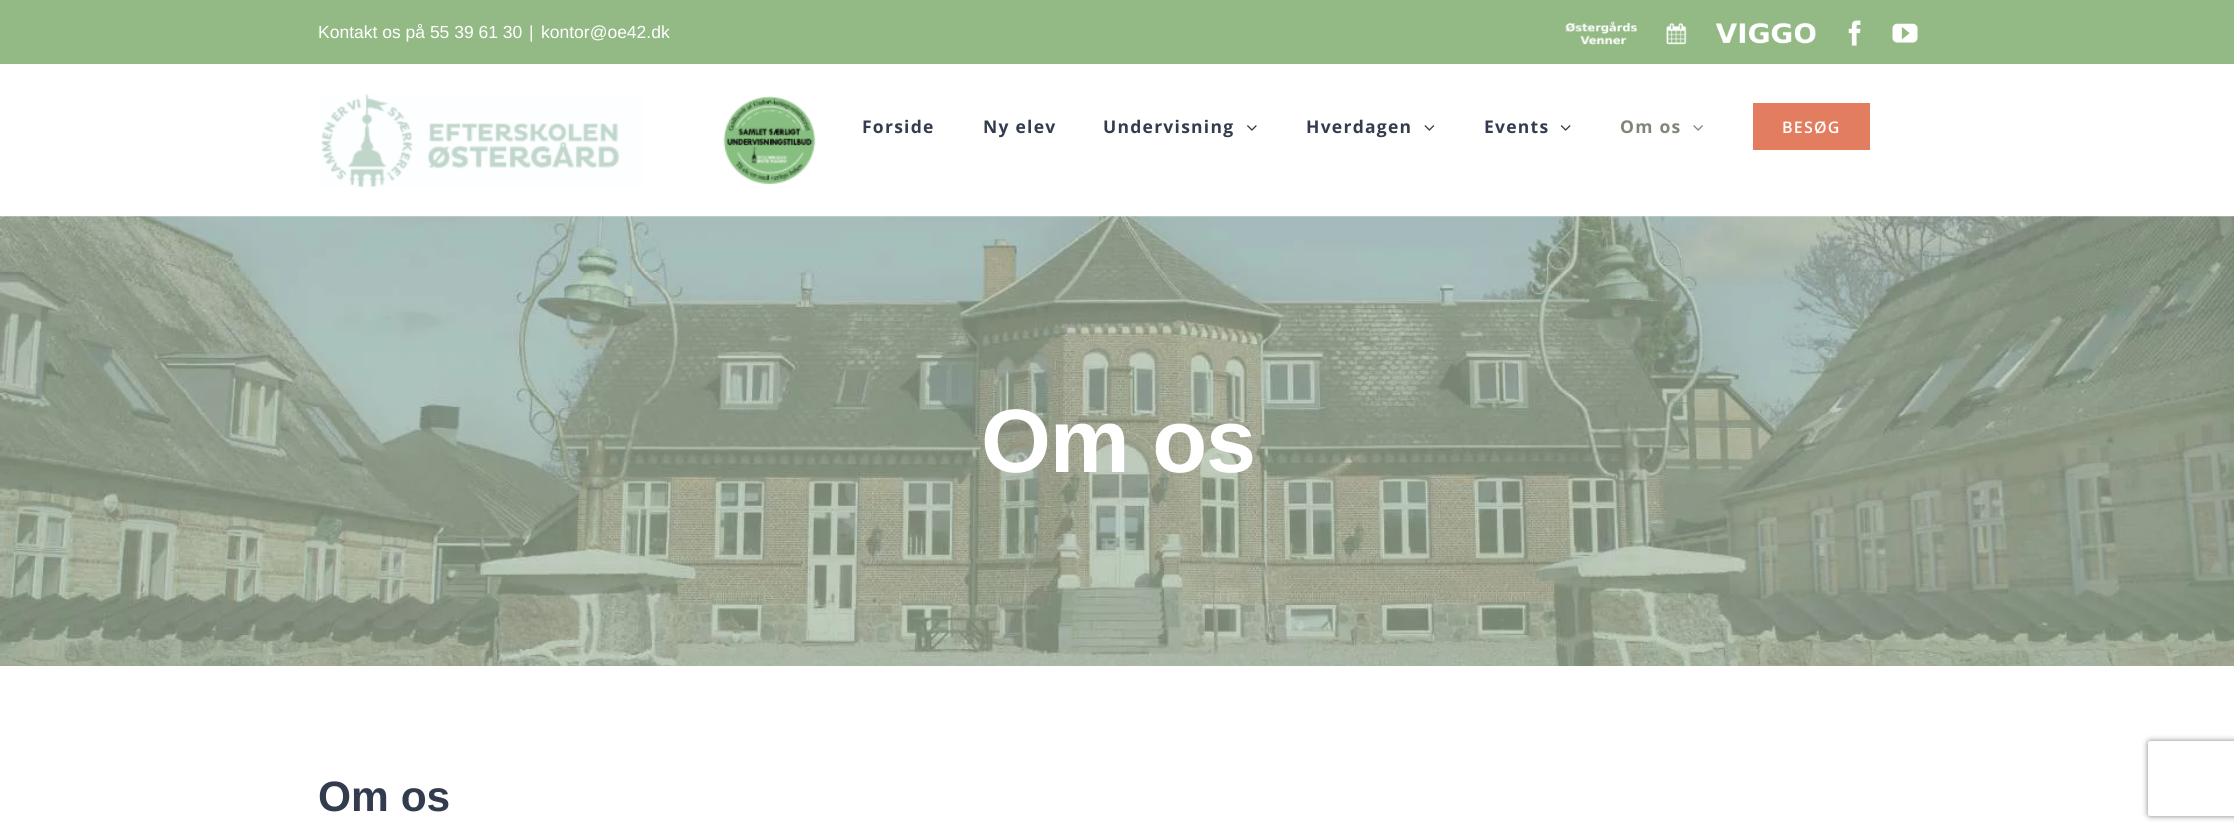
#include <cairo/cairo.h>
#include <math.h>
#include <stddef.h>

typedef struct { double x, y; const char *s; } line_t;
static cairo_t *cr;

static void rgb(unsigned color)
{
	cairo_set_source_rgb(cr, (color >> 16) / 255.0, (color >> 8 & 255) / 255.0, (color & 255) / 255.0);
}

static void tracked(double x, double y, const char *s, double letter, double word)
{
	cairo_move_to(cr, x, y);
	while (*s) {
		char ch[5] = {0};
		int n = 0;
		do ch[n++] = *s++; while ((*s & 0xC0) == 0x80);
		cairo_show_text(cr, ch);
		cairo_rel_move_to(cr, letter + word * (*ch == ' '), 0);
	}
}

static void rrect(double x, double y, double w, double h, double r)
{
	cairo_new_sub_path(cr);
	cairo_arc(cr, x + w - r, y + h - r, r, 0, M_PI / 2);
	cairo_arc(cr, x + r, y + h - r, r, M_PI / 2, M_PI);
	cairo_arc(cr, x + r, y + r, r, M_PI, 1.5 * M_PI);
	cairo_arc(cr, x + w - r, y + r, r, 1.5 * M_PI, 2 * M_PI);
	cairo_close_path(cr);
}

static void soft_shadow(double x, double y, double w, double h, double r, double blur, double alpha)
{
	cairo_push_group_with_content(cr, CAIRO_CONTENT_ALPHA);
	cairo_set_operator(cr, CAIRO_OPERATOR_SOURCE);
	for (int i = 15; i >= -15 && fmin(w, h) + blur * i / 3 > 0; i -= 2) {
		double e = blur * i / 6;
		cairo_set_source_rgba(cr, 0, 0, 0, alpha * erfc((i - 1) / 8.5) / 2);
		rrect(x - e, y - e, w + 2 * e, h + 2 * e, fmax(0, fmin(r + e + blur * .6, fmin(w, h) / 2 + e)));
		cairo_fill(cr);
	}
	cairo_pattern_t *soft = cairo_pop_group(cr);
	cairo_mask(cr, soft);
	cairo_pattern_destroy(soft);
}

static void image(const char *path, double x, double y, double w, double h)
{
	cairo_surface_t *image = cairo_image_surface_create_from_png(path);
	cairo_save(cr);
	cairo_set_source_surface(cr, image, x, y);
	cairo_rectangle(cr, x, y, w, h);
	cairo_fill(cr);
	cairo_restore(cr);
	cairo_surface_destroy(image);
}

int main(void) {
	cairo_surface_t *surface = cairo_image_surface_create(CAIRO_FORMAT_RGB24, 2234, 833);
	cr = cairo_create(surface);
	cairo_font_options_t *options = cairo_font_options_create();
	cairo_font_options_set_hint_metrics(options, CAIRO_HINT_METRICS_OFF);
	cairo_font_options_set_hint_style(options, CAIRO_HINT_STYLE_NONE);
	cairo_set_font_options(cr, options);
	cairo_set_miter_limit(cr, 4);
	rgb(0xffffff);
	cairo_paint(cr);
	rgb(0x93ba84);
	cairo_rectangle(cr, 0, 0, 2234, 64);
	cairo_fill(cr);
	image("img/1.png", 1565, 21, 72, 24);
	image("img/2.png", 1666, 23, 21, 22);
	image("img/3.png", 1715, 22, 101, 22);
	image("img/4.png", 1848, 20, 13, 26);
	image("img/5.png", 1892, 23, 26, 20);
	image("img/6.png", 321, 93, 495, 95);
	image("img/7.png", 1247, 125, 10, 6);
	image("img/8.png", 1424, 125, 11, 6);
	image("img/9.png", 1560, 125, 11, 6);
	image("img/10.png", 1693, 125, 10, 6);
	rgb(0xe27d60);
	cairo_rectangle(cr, 1753, 103, 117, 47);
	cairo_fill(cr);
	image("img/11.png", 0, 216, 2234, 450);
	cairo_save(cr);
	cairo_set_fill_rule(cr, CAIRO_FILL_RULE_EVEN_ODD);
	cairo_new_path(cr);
	cairo_move_to(cr, 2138, 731);
	cairo_line_to(cr, 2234, 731);
	cairo_line_to(cr, 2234, 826);
	cairo_line_to(cr, 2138, 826);
	cairo_close_path(cr);
	cairo_move_to(cr, 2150.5, 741);
	cairo_line_to(cr, 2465.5, 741);
	cairo_curve_to(cr, 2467, 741, 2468, 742, 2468, 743.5);
	cairo_line_to(cr, 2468, 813.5);
	cairo_curve_to(cr, 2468, 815, 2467, 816, 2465.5, 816);
	cairo_line_to(cr, 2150.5, 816);
	cairo_curve_to(cr, 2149, 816, 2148, 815, 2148, 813.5);
	cairo_line_to(cr, 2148, 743.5);
	cairo_curve_to(cr, 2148, 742, 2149, 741, 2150.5, 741);
	cairo_close_path(cr);
	cairo_clip(cr);
	rgb(0x808080);
	soft_shadow(2148, 741, 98, 75, 2.5, 3, 1);
	cairo_restore(cr);
	cairo_select_font_face(cr, "Liberation Sans", CAIRO_FONT_SLANT_NORMAL, CAIRO_FONT_WEIGHT_NORMAL);
	cairo_set_font_size(cr, 17.5);
	rgb(0xffffff);
	{
		static const line_t items[] = {
			{318, 38, "Kontakt os på 55 39 61 30"},
			{529, 38, "|"},
			{541, 38, "kontor@oe42.dk"},
		};
		for (size_t i = 0; i < sizeof items / sizeof *items; i++) {
			cairo_move_to(cr, items[i].x, items[i].y);
			cairo_show_text(cr, items[i].s);
		}
	}
	cairo_select_font_face(cr, "Open Sans", CAIRO_FONT_SLANT_NORMAL, CAIRO_FONT_WEIGHT_BOLD);
	rgb(0x333c4e);
	{
		static const line_t items[] = {
			{862, 133, "Forside"},
			{983, 133, "Ny elev"},
			{1103, 133, "Undervisning"},
			{1306, 133, "Hverdagen"},
			{1484, 133, "Events"},
		};
		for (size_t i = 0; i < sizeof items / sizeof *items; i++) {
			tracked(items[i].x, items[i].y, items[i].s, 1.25, 0);
		}
	}
	rgb(0x7d8678);
	tracked(1620, 133, "Om os", 1.25, 0);
	cairo_select_font_face(cr, "Open Sans SemiBold", CAIRO_FONT_SLANT_NORMAL, CAIRO_FONT_WEIGHT_NORMAL);
	cairo_set_font_size(cr, 16);
	rgb(0xffffff);
	tracked(1782, 133, "BESØG", 1.25, 0);
	cairo_select_font_face(cr, "Liberation Sans", CAIRO_FONT_SLANT_NORMAL, CAIRO_FONT_WEIGHT_BOLD);
	cairo_set_font_size(cr, 90);
	tracked(981, 472, "Om os", -1.25, 0);
	cairo_set_font_size(cr, 42.5);
	rgb(0x333c4e);
	cairo_move_to(cr, 318, 811);
	cairo_show_text(cr, "Om os");
	cairo_surface_write_to_png(surface, "page.png");
	cairo_font_options_destroy(options);
	cairo_destroy(cr);
	cairo_surface_destroy(surface);
	return 0;
}
